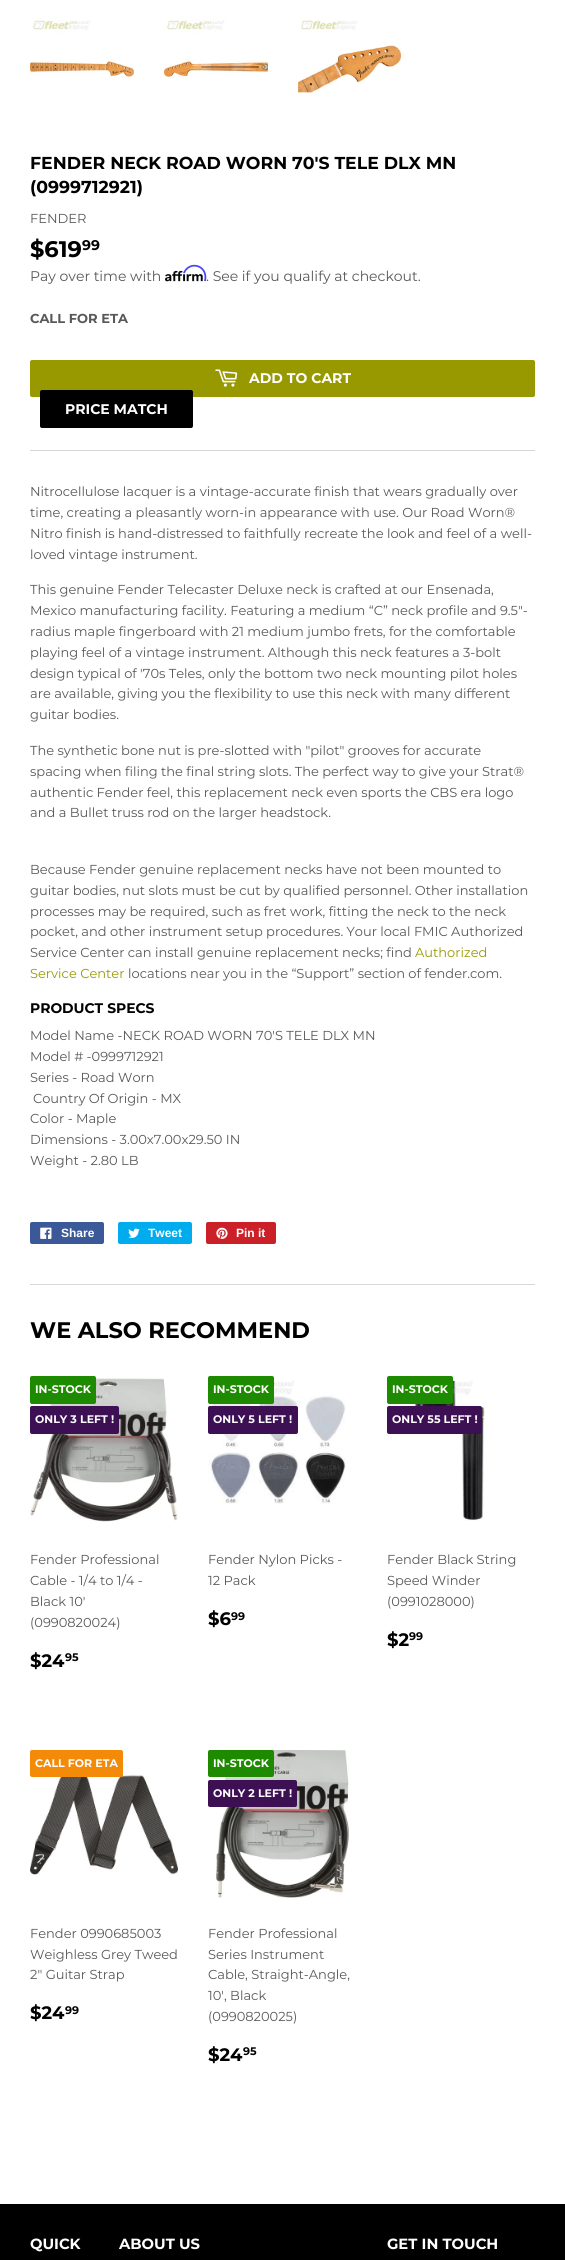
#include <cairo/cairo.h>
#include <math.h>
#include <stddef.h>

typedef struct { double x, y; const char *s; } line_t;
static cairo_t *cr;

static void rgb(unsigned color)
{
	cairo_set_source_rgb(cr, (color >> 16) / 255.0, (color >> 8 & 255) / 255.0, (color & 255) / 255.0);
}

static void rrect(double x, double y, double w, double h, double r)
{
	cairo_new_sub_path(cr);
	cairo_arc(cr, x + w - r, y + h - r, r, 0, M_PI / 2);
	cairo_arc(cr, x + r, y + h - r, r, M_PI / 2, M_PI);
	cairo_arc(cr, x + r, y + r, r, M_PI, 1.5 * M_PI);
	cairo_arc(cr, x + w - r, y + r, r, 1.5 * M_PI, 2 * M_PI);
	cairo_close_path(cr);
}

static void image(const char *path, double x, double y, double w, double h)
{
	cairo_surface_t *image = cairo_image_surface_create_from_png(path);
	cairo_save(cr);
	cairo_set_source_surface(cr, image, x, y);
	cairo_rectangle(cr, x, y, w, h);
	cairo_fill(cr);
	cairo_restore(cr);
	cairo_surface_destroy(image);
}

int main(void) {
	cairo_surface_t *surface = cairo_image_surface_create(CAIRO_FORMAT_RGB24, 565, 2260);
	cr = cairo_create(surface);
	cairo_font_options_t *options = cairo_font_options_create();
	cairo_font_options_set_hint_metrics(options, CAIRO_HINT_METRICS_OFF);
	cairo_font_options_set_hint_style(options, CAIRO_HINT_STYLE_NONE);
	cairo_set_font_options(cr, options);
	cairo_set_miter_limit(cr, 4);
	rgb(0xffffff);
	cairo_paint(cr);
	image("img/1.png", 30, 17, 104, 61);
	image("img/2.png", 164, 17, 104, 62);
	image("img/3.png", 298, 20, 103, 73);
	image("img/5.png", 165, 270, 38, 12);
	image("img/4.png", 183, 264, 24, 18);
	rgb(0x989900);
	rrect(30, 360, 505, 37, 2);
	cairo_fill(cr);
	image("img/6.png", 215, 369, 23, 18);
	rgb(0x000000);
	rrect(40, 390, 153, 38, 2);
	cairo_fill(cr);
	rgb(0xd7d7d7);
	cairo_rectangle(cr, 30, 450, 505, 1);
	cairo_fill(cr);
	rgb(0x3b5998);
	rrect(30, 1222, 74, 22, 2);
	cairo_fill(cr);
	image("img/7.png", 40, 1227, 12, 12);
	rgb(0x00aced);
	rrect(118, 1222, 74, 22, 2);
	cairo_fill(cr);
	image("img/8.png", 128, 1228, 12, 10);
	rgb(0xcb2027);
	rrect(206, 1222, 70, 22, 2);
	cairo_fill(cr);
	image("img/9.png", 216, 1227, 12, 12);
	rgb(0xd7d7d7);
	cairo_rectangle(cr, 30, 1284, 505, 1);
	cairo_fill(cr);
	image("img/10.png", 30, 1378, 148, 144);
	rgb(0x1e8a00);
	rrect(30, 1376, 66, 28, 2);
	cairo_fill(cr);
	rgb(0x3c1053);
	rrect(30, 1406, 89, 28, 2);
	cairo_fill(cr);
	image("img/11.png", 208, 1380, 138, 124);
	rgb(0x1e8a00);
	rrect(208, 1376, 66, 28, 2);
	cairo_fill(cr);
	rgb(0x3c1053);
	rrect(208, 1406, 90, 28, 2);
	cairo_fill(cr);
	image("img/12.png", 391, 1379, 96, 142);
	rgb(0x1e8a00);
	rrect(387, 1376, 66, 28, 2);
	cairo_fill(cr);
	rgb(0x3c1053);
	rrect(387, 1406, 95, 28, 2);
	cairo_fill(cr);
	image("img/13.png", 30, 1755, 148, 120);
	rgb(0xf38a08);
	rrect(30, 1750, 93, 27, 2);
	cairo_fill(cr);
	image("img/14.png", 212, 1750, 137, 148);
	rgb(0x1e8a00);
	rrect(208, 1750, 66, 27, 2);
	cairo_fill(cr);
	rgb(0x3c1053);
	rrect(208, 1780, 89, 27, 2);
	cairo_fill(cr);
	rgb(0x000000);
	cairo_rectangle(cr, 0, 2204, 565, 56);
	cairo_fill(cr);
	cairo_select_font_face(cr, "Montserrat", CAIRO_FONT_SLANT_NORMAL, CAIRO_FONT_WEIGHT_BOLD);
	cairo_set_font_size(cr, 17.3);
	cairo_move_to(cr, 30, 169);
	cairo_show_text(cr, "FENDER NECK ROAD WORN 70'S TELE DLX MN");
	cairo_move_to(cr, 30, 193);
	cairo_show_text(cr, "(0999712921)");
	cairo_select_font_face(cr, "Montserrat", CAIRO_FONT_SLANT_NORMAL, CAIRO_FONT_WEIGHT_NORMAL);
	cairo_set_font_size(cr, 13);
	rgb(0x585858);
	cairo_move_to(cr, 30, 223);
	cairo_show_text(cr, "FENDER");
	cairo_select_font_face(cr, "Montserrat", CAIRO_FONT_SLANT_NORMAL, CAIRO_FONT_WEIGHT_BOLD);
	cairo_set_font_size(cr, 22.5);
	rgb(0x000000);
	cairo_move_to(cr, 30, 257);
	cairo_show_text(cr, "$619");
	cairo_set_font_size(cr, 14);
	cairo_move_to(cr, 82, 250);
	cairo_show_text(cr, "99");
	cairo_select_font_face(cr, "Montserrat", CAIRO_FONT_SLANT_NORMAL, CAIRO_FONT_WEIGHT_NORMAL);
	rgb(0x585858);
	cairo_move_to(cr, 30, 281);
	cairo_show_text(cr, "Pay over time with");
	cairo_move_to(cr, 206, 281);
	cairo_show_text(cr, ". See if you qualify at checkout.");
	cairo_select_font_face(cr, "Montserrat", CAIRO_FONT_SLANT_NORMAL, CAIRO_FONT_WEIGHT_BOLD);
	cairo_set_font_size(cr, 13);
	cairo_move_to(cr, 30, 323);
	cairo_show_text(cr, "CALL FOR ETA");
	cairo_set_font_size(cr, 14);
	rgb(0xffffff);
	cairo_move_to(cr, 249, 383);
	cairo_show_text(cr, "ADD TO CART");
	cairo_move_to(cr, 65, 414);
	cairo_show_text(cr, "PRICE MATCH");
	cairo_select_font_face(cr, "Montserrat", CAIRO_FONT_SLANT_NORMAL, CAIRO_FONT_WEIGHT_NORMAL);
	cairo_set_font_size(cr, 13);
	rgb(0x585858);
	{
		static const line_t items[] = {
			{30, 496, "Nitrocellulose lacquer is a vintage-accurate finish that wears gradually over"},
			{30, 517, "time, creating a pleasantly worn-in appearance with use. Our Road Worn®"},
			{30, 538, "Nitro finish is hand-distressed to faithfully recreate the look and feel of a well-"},
			{30, 559, "loved vintage instrument."},
			{30, 594, "This genuine Fender Telecaster Deluxe neck is crafted at our Ensenada,"},
			{30, 615, "Mexico manufacturing facility. Featuring a medium “C” neck profile and 9.5\"-"},
			{30, 636, "radius maple fingerboard with 21 medium jumbo frets, for the comfortable"},
			{30, 657, "playing feel of a vintage instrument. Although this neck features a 3-bolt"},
			{30, 678, "design typical of '70s Teles, only the bottom two neck mounting pilot holes"},
			{30, 698, "are available, giving you the flexibility to use this neck with many different"},
			{30, 719, "guitar bodies."},
			{30, 755, "The synthetic bone nut is pre-slotted with \"pilot\" grooves for accurate"},
			{30, 776, "spacing when filing the final string slots. The perfect way to give your Strat®"},
			{30, 797, "authentic Fender feel, this replacement neck even sports the CBS era logo"},
			{30, 817, "and a Bullet truss rod on the larger headstock."},
			{30, 874, "Because Fender genuine replacement necks have not been mounted to"},
			{30, 895, "guitar bodies, nut slots must be cut by qualified personnel. Other installation"},
			{30, 916, "processes may be required, such as fret work, fitting the neck to the neck"},
			{30, 936, "pocket, and other instrument setup procedures. Your local FMIC Authorized"},
			{30, 957, "Service Center can install genuine replacement necks; find"},
		};
		for (size_t i = 0; i < sizeof items / sizeof *items; i++) {
			cairo_move_to(cr, items[i].x, items[i].y);
			cairo_show_text(cr, items[i].s);
		}
	}
	rgb(0x989900);
	cairo_move_to(cr, 415, 957);
	cairo_show_text(cr, "Authorized");
	cairo_move_to(cr, 30, 978);
	cairo_show_text(cr, "Service Center");
	rgb(0x585858);
	cairo_move_to(cr, 128, 978);
	cairo_show_text(cr, "locations near you in the “Support” section of fender.com.");
	cairo_select_font_face(cr, "Montserrat", CAIRO_FONT_SLANT_NORMAL, CAIRO_FONT_WEIGHT_BOLD);
	cairo_set_font_size(cr, 13.9);
	rgb(0x000000);
	cairo_move_to(cr, 30, 1013);
	cairo_show_text(cr, "PRODUCT SPECS");
	cairo_select_font_face(cr, "Montserrat", CAIRO_FONT_SLANT_NORMAL, CAIRO_FONT_WEIGHT_NORMAL);
	cairo_set_font_size(cr, 13);
	rgb(0x585858);
	{
		static const line_t items[] = {
			{30, 1040, "Model Name -NECK ROAD WORN 70'S TELE DLX MN"},
			{30, 1061, "Model # -0999712921"},
			{30, 1082, "Series - Road Worn"},
			{33, 1103, "Country Of Origin - MX"},
			{30, 1123, "Color - Maple"},
			{30, 1144, "Dimensions - 3.00x7.00x29.50 IN"},
			{30, 1165, "Weight - 2.80 LB"},
		};
		for (size_t i = 0; i < sizeof items / sizeof *items; i++) {
			cairo_move_to(cr, items[i].x, items[i].y);
			cairo_show_text(cr, items[i].s);
		}
	}
	cairo_select_font_face(cr, "Liberation Sans", CAIRO_FONT_SLANT_NORMAL, CAIRO_FONT_WEIGHT_BOLD);
	cairo_set_font_size(cr, 12);
	rgb(0xffffff);
	{
		static const line_t items[] = {
			{61, 1237, "Share"},
			{148, 1237, "Tweet"},
			{236, 1237, "Pin it"},
		};
		for (size_t i = 0; i < sizeof items / sizeof *items; i++) {
			cairo_move_to(cr, items[i].x, items[i].y);
			cairo_show_text(cr, items[i].s);
		}
	}
	cairo_select_font_face(cr, "Montserrat", CAIRO_FONT_SLANT_NORMAL, CAIRO_FONT_WEIGHT_BOLD);
	cairo_set_font_size(cr, 22.5);
	rgb(0x000000);
	cairo_move_to(cr, 30, 1338);
	cairo_show_text(cr, "WE ALSO RECOMMEND");
	cairo_set_font_size(cr, 11);
	rgb(0xffffff);
	cairo_move_to(cr, 35, 1393);
	cairo_show_text(cr, "IN-STOCK");
	cairo_move_to(cr, 35, 1423);
	cairo_show_text(cr, "ONLY 3 LEFT !");
	cairo_select_font_face(cr, "Montserrat", CAIRO_FONT_SLANT_NORMAL, CAIRO_FONT_WEIGHT_NORMAL);
	cairo_set_font_size(cr, 13);
	rgb(0x585858);
	{
		static const line_t items[] = {
			{30, 1564, "Fender Professional"},
			{30, 1585, "Cable - 1/4 to 1/4 -"},
			{30, 1606, "Black 10'"},
			{30, 1627, "(0990820024)"},
		};
		for (size_t i = 0; i < sizeof items / sizeof *items; i++) {
			cairo_move_to(cr, items[i].x, items[i].y);
			cairo_show_text(cr, items[i].s);
		}
	}
	cairo_select_font_face(cr, "Montserrat", CAIRO_FONT_SLANT_NORMAL, CAIRO_FONT_WEIGHT_BOLD);
	cairo_set_font_size(cr, 18);
	rgb(0x000000);
	cairo_move_to(cr, 30, 1667);
	cairo_show_text(cr, "$24");
	cairo_set_font_size(cr, 11);
	cairo_move_to(cr, 65, 1661);
	cairo_show_text(cr, "95");
	rgb(0xffffff);
	cairo_move_to(cr, 213, 1393);
	cairo_show_text(cr, "IN-STOCK");
	cairo_move_to(cr, 213, 1423);
	cairo_show_text(cr, "ONLY 5 LEFT !");
	cairo_select_font_face(cr, "Montserrat", CAIRO_FONT_SLANT_NORMAL, CAIRO_FONT_WEIGHT_NORMAL);
	cairo_set_font_size(cr, 13);
	rgb(0x585858);
	cairo_move_to(cr, 208, 1564);
	cairo_show_text(cr, "Fender Nylon Picks -");
	cairo_move_to(cr, 208, 1585);
	cairo_show_text(cr, "12 Pack");
	cairo_select_font_face(cr, "Montserrat", CAIRO_FONT_SLANT_NORMAL, CAIRO_FONT_WEIGHT_BOLD);
	cairo_set_font_size(cr, 18);
	rgb(0x000000);
	cairo_move_to(cr, 208, 1625);
	cairo_show_text(cr, "$6");
	cairo_set_font_size(cr, 11);
	cairo_move_to(cr, 231, 1620);
	cairo_show_text(cr, "99");
	rgb(0xffffff);
	cairo_move_to(cr, 392, 1393);
	cairo_show_text(cr, "IN-STOCK");
	cairo_move_to(cr, 392, 1423);
	cairo_show_text(cr, "ONLY 55 LEFT !");
	cairo_select_font_face(cr, "Montserrat", CAIRO_FONT_SLANT_NORMAL, CAIRO_FONT_WEIGHT_NORMAL);
	cairo_set_font_size(cr, 13);
	rgb(0x585858);
	{
		static const line_t items[] = {
			{387, 1564, "Fender Black String"},
			{387, 1585, "Speed Winder"},
			{387, 1606, "(0991028000)"},
		};
		for (size_t i = 0; i < sizeof items / sizeof *items; i++) {
			cairo_move_to(cr, items[i].x, items[i].y);
			cairo_show_text(cr, items[i].s);
		}
	}
	cairo_select_font_face(cr, "Montserrat", CAIRO_FONT_SLANT_NORMAL, CAIRO_FONT_WEIGHT_BOLD);
	cairo_set_font_size(cr, 18);
	rgb(0x000000);
	cairo_move_to(cr, 387, 1646);
	cairo_show_text(cr, "$2");
	cairo_set_font_size(cr, 11);
	cairo_move_to(cr, 409, 1640);
	cairo_show_text(cr, "99");
	rgb(0xffffff);
	cairo_move_to(cr, 35, 1767);
	cairo_show_text(cr, "CALL FOR ETA");
	cairo_select_font_face(cr, "Montserrat", CAIRO_FONT_SLANT_NORMAL, CAIRO_FONT_WEIGHT_NORMAL);
	cairo_set_font_size(cr, 13);
	rgb(0x585858);
	{
		static const line_t items[] = {
			{30, 1938, "Fender 0990685003"},
			{30, 1959, "Weighless Grey Tweed"},
			{30, 1979, "2\" Guitar Strap"},
		};
		for (size_t i = 0; i < sizeof items / sizeof *items; i++) {
			cairo_move_to(cr, items[i].x, items[i].y);
			cairo_show_text(cr, items[i].s);
		}
	}
	cairo_select_font_face(cr, "Montserrat", CAIRO_FONT_SLANT_NORMAL, CAIRO_FONT_WEIGHT_BOLD);
	cairo_set_font_size(cr, 18);
	rgb(0x000000);
	cairo_move_to(cr, 30, 2019);
	cairo_show_text(cr, "$24");
	cairo_set_font_size(cr, 11);
	cairo_move_to(cr, 65, 2014);
	cairo_show_text(cr, "99");
	rgb(0xffffff);
	cairo_move_to(cr, 213, 1767);
	cairo_show_text(cr, "IN-STOCK");
	cairo_move_to(cr, 213, 1797);
	cairo_show_text(cr, "ONLY 2 LEFT !");
	cairo_select_font_face(cr, "Montserrat", CAIRO_FONT_SLANT_NORMAL, CAIRO_FONT_WEIGHT_NORMAL);
	cairo_set_font_size(cr, 13);
	rgb(0x585858);
	{
		static const line_t items[] = {
			{208, 1938, "Fender Professional"},
			{208, 1959, "Series Instrument"},
			{208, 1979, "Cable, Straight-Angle,"},
			{208, 2000, "10', Black"},
			{208, 2021, "(0990820025)"},
		};
		for (size_t i = 0; i < sizeof items / sizeof *items; i++) {
			cairo_move_to(cr, items[i].x, items[i].y);
			cairo_show_text(cr, items[i].s);
		}
	}
	cairo_select_font_face(cr, "Montserrat", CAIRO_FONT_SLANT_NORMAL, CAIRO_FONT_WEIGHT_BOLD);
	cairo_set_font_size(cr, 18);
	rgb(0x000000);
	cairo_move_to(cr, 208, 2061);
	cairo_show_text(cr, "$24");
	cairo_set_font_size(cr, 11);
	cairo_move_to(cr, 243, 2055);
	cairo_show_text(cr, "95");
	cairo_set_font_size(cr, 14.75);
	rgb(0xffffff);
	{
		static const line_t items[] = {
			{30, 2249, "QUICK"},
			{119, 2249, "ABOUT US"},
			{387, 2249, "GET IN TOUCH"},
		};
		for (size_t i = 0; i < sizeof items / sizeof *items; i++) {
			cairo_move_to(cr, items[i].x, items[i].y);
			cairo_show_text(cr, items[i].s);
		}
	}
	cairo_surface_write_to_png(surface, "page.png");
	cairo_font_options_destroy(options);
	cairo_destroy(cr);
	cairo_surface_destroy(surface);
	return 0;
}
